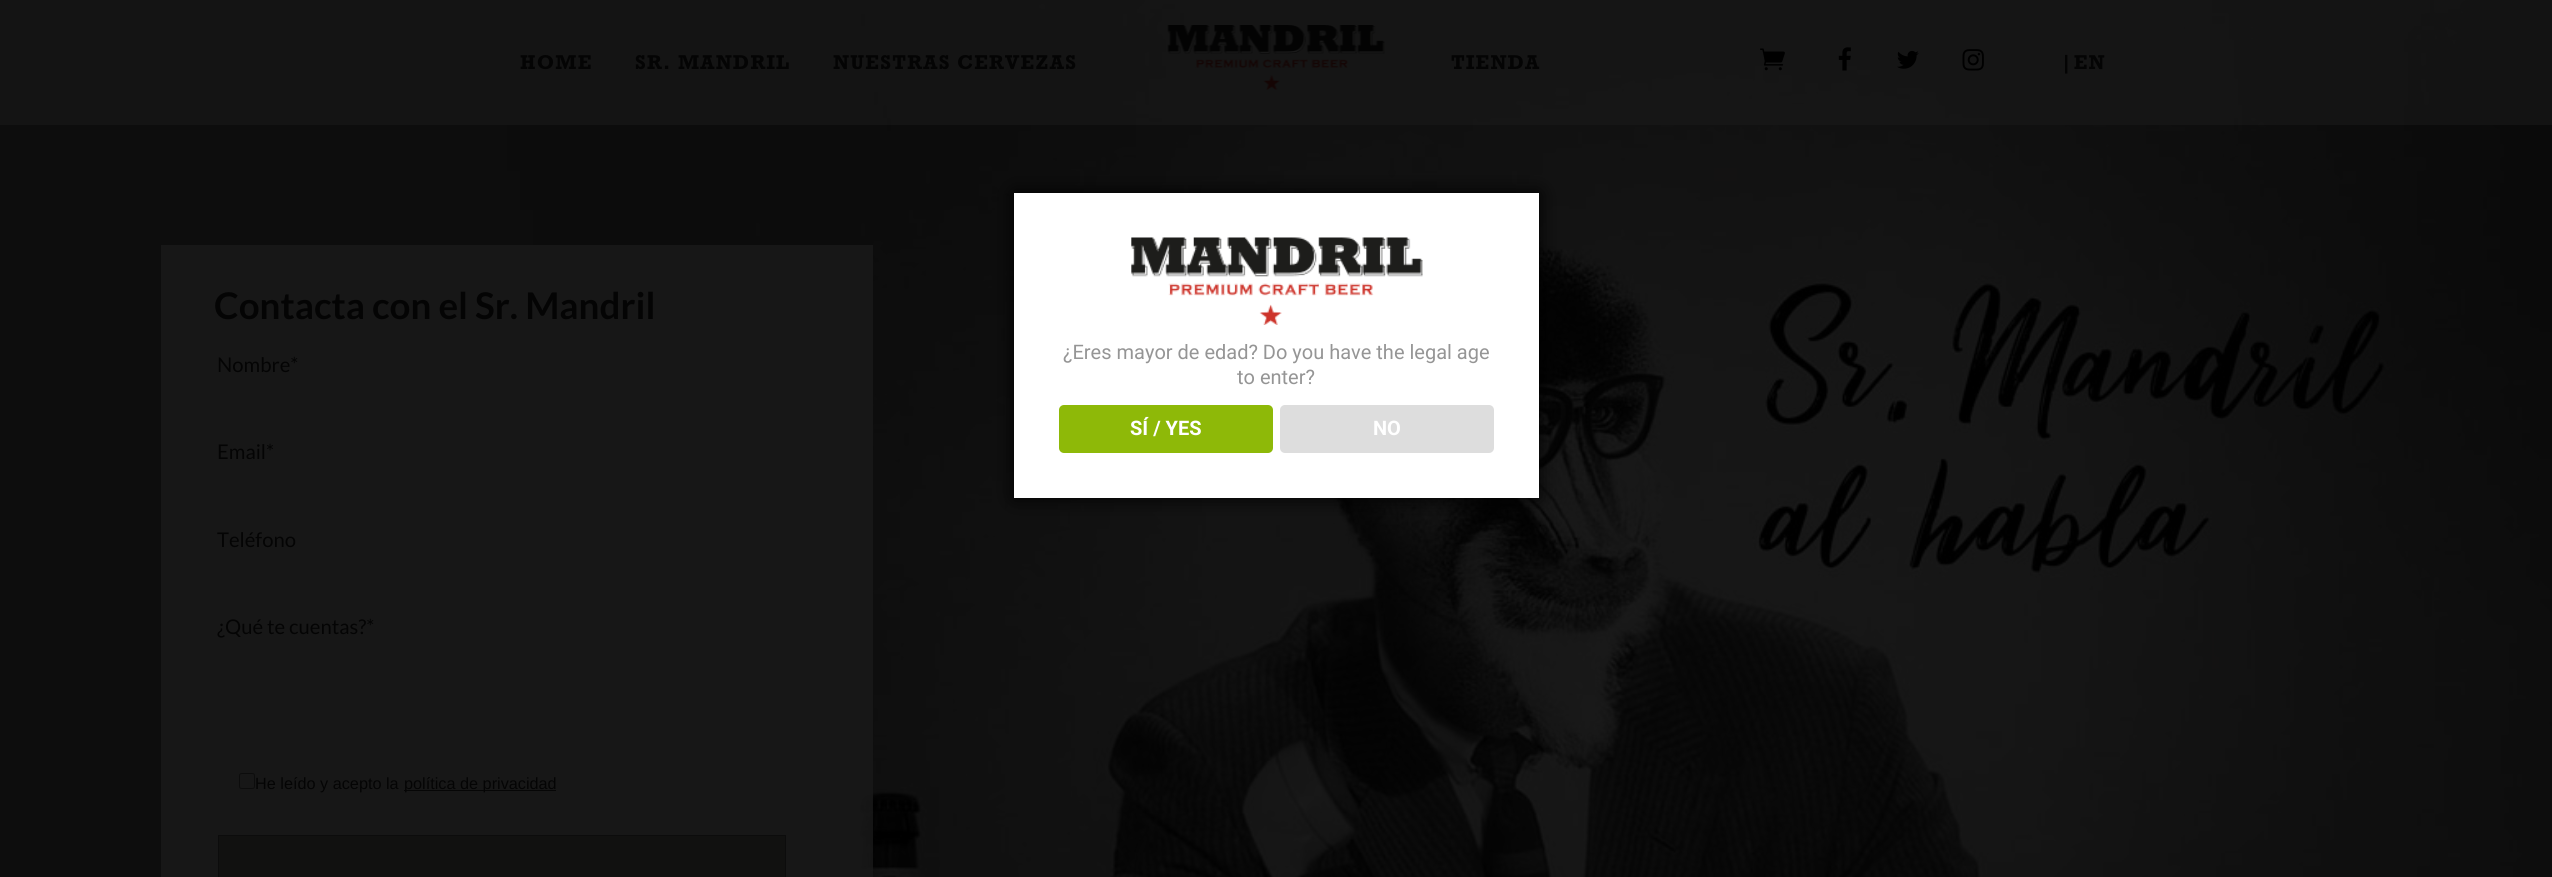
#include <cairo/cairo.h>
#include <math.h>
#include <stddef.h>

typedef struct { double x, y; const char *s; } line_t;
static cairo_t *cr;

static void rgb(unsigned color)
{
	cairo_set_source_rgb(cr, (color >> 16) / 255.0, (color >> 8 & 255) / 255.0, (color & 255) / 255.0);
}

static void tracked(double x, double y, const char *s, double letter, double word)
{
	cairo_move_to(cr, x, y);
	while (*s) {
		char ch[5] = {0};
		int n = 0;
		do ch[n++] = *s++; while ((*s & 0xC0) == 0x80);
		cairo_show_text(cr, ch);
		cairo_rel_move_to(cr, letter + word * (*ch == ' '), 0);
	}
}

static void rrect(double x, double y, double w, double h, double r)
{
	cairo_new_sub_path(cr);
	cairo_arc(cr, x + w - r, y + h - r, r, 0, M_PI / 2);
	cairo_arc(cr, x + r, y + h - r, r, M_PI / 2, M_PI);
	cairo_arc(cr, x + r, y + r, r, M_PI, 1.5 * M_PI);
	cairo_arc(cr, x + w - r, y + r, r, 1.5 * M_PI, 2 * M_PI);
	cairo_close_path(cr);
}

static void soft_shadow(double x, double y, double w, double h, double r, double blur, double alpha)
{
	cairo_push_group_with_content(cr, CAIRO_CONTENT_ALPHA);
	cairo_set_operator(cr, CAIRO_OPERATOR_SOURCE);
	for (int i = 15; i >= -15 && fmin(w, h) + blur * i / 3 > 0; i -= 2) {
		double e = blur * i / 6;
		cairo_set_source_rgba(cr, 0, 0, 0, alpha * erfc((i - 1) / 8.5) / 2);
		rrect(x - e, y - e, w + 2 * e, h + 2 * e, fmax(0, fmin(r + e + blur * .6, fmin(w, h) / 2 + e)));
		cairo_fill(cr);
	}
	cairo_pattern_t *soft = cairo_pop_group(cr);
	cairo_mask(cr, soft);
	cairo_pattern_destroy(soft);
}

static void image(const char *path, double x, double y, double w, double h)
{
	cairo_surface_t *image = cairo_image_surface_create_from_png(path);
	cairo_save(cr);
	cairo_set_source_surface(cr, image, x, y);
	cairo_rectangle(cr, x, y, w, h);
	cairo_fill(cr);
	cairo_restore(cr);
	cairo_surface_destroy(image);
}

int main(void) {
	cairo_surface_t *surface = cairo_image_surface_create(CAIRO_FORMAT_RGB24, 2552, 877);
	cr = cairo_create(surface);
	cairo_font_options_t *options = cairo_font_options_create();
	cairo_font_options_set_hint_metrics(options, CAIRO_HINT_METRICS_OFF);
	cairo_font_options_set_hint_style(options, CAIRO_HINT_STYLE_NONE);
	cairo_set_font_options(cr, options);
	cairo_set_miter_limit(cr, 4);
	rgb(0xffffff);
	cairo_paint(cr);
	image("img/6.png", 0, 0, 2552, 877);
	cairo_set_source_rgba(cr, 0.098, 0.098, 0.098, 0.6);
	cairo_rectangle(cr, 0, 0, 2552, 125);
	cairo_fill(cr);
	image("img/1.png", 1167, 25, 218, 65);
	image("img/2.png", 1760, 48, 25, 23);
	image("img/3.png", 1838, 47, 13, 24);
	image("img/4.png", 1897, 50, 22, 19);
	image("img/5.png", 1962, 49, 22, 22);
	cairo_set_source_rgba(cr, 0.098, 0.098, 0.098, 0.85);
	cairo_rectangle(cr, 161, 245, 712, 632);
	cairo_fill(cr);
	rrect(239.5, 773.5, 15, 15, 2);
	rgb(0x0c0c0c);
	cairo_set_line_width(cr, 1);
	cairo_stroke(cr);
	rgb(0x060606);
	cairo_rectangle(cr, 404, 790, 152, 1);
	cairo_fill(cr);
	rgb(0x111110);
	cairo_rectangle(cr, 218.5, 835.5, 567, 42);
	cairo_fill_preserve(cr);
	rgb(0x0c0c0c);
	cairo_stroke(cr);
	rgb(0x000000);
	soft_shadow(1014, 193, 525, 305, 0, 9.5, 1);
	rgb(0xffffff);
	cairo_rectangle(cr, 1014, 193, 525, 305);
	cairo_fill(cr);
	image("img/7.png", 1131, 237, 292, 88);
	rgb(0x8eb908);
	rrect(1059, 405, 214, 48, 5);
	cairo_fill(cr);
	rgb(0xdddddd);
	rrect(1280, 405, 214, 48, 5);
	cairo_fill(cr);
	cairo_select_font_face(cr, "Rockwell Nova", CAIRO_FONT_SLANT_NORMAL, CAIRO_FONT_WEIGHT_BOLD);
	cairo_set_font_size(cr, 18.75);
	rgb(0x040404);
	{
		static const line_t items[] = {
			{520, 69, "HOME"},
			{635, 69, "SR. MANDRIL"},
			{833, 69, "NUESTRAS CERVEZAS"},
			{1451, 69, "TIENDA"},
			{2060, 69, "|EN"},
		};
		for (size_t i = 0; i < sizeof items / sizeof *items; i++) {
			tracked(items[i].x, items[i].y, items[i].s, 1.25, 0);
		}
	}
	cairo_select_font_face(cr, "Lato", CAIRO_FONT_SLANT_NORMAL, CAIRO_FONT_WEIGHT_BOLD);
	cairo_set_font_size(cr, 36.75);
	cairo_move_to(cr, 214, 319);
	cairo_show_text(cr, "Contacta con el Sr. Mandril");
	cairo_select_font_face(cr, "Lato", CAIRO_FONT_SLANT_NORMAL, CAIRO_FONT_WEIGHT_NORMAL);
	cairo_set_font_size(cr, 20.25);
	{
		static const line_t items[] = {
			{217, 372, "Nombre*"},
			{217, 459, "Email*"},
			{217, 547, "Teléfono"},
			{217, 634, "¿Qué te cuentas?*"},
		};
		for (size_t i = 0; i < sizeof items / sizeof *items; i++) {
			cairo_move_to(cr, items[i].x, items[i].y);
			cairo_show_text(cr, items[i].s);
		}
	}
	cairo_select_font_face(cr, "Liberation Sans", CAIRO_FONT_SLANT_NORMAL, CAIRO_FONT_WEIGHT_NORMAL);
	cairo_set_font_size(cr, 16.25);
	cairo_move_to(cr, 255, 789);
	cairo_show_text(cr, "He leído y acepto la");
	cairo_move_to(cr, 404, 789);
	cairo_show_text(cr, "política de privacidad");
	cairo_select_font_face(cr, "Roboto", CAIRO_FONT_SLANT_NORMAL, CAIRO_FONT_WEIGHT_NORMAL);
	cairo_set_font_size(cr, 20);
	rgb(0x959595);
	cairo_move_to(cr, 1063, 359);
	cairo_show_text(cr, "¿Eres mayor de edad? Do you have the legal age");
	cairo_move_to(cr, 1237, 384);
	cairo_show_text(cr, "to enter?");
	cairo_select_font_face(cr, "Roboto", CAIRO_FONT_SLANT_NORMAL, CAIRO_FONT_WEIGHT_BOLD);
	rgb(0xffffff);
	cairo_move_to(cr, 1130, 435);
	cairo_show_text(cr, "SÍ / YES");
	cairo_move_to(cr, 1373, 435);
	cairo_show_text(cr, "NO");
	cairo_surface_write_to_png(surface, "page.png");
	cairo_font_options_destroy(options);
	cairo_destroy(cr);
	cairo_surface_destroy(surface);
	return 0;
}
